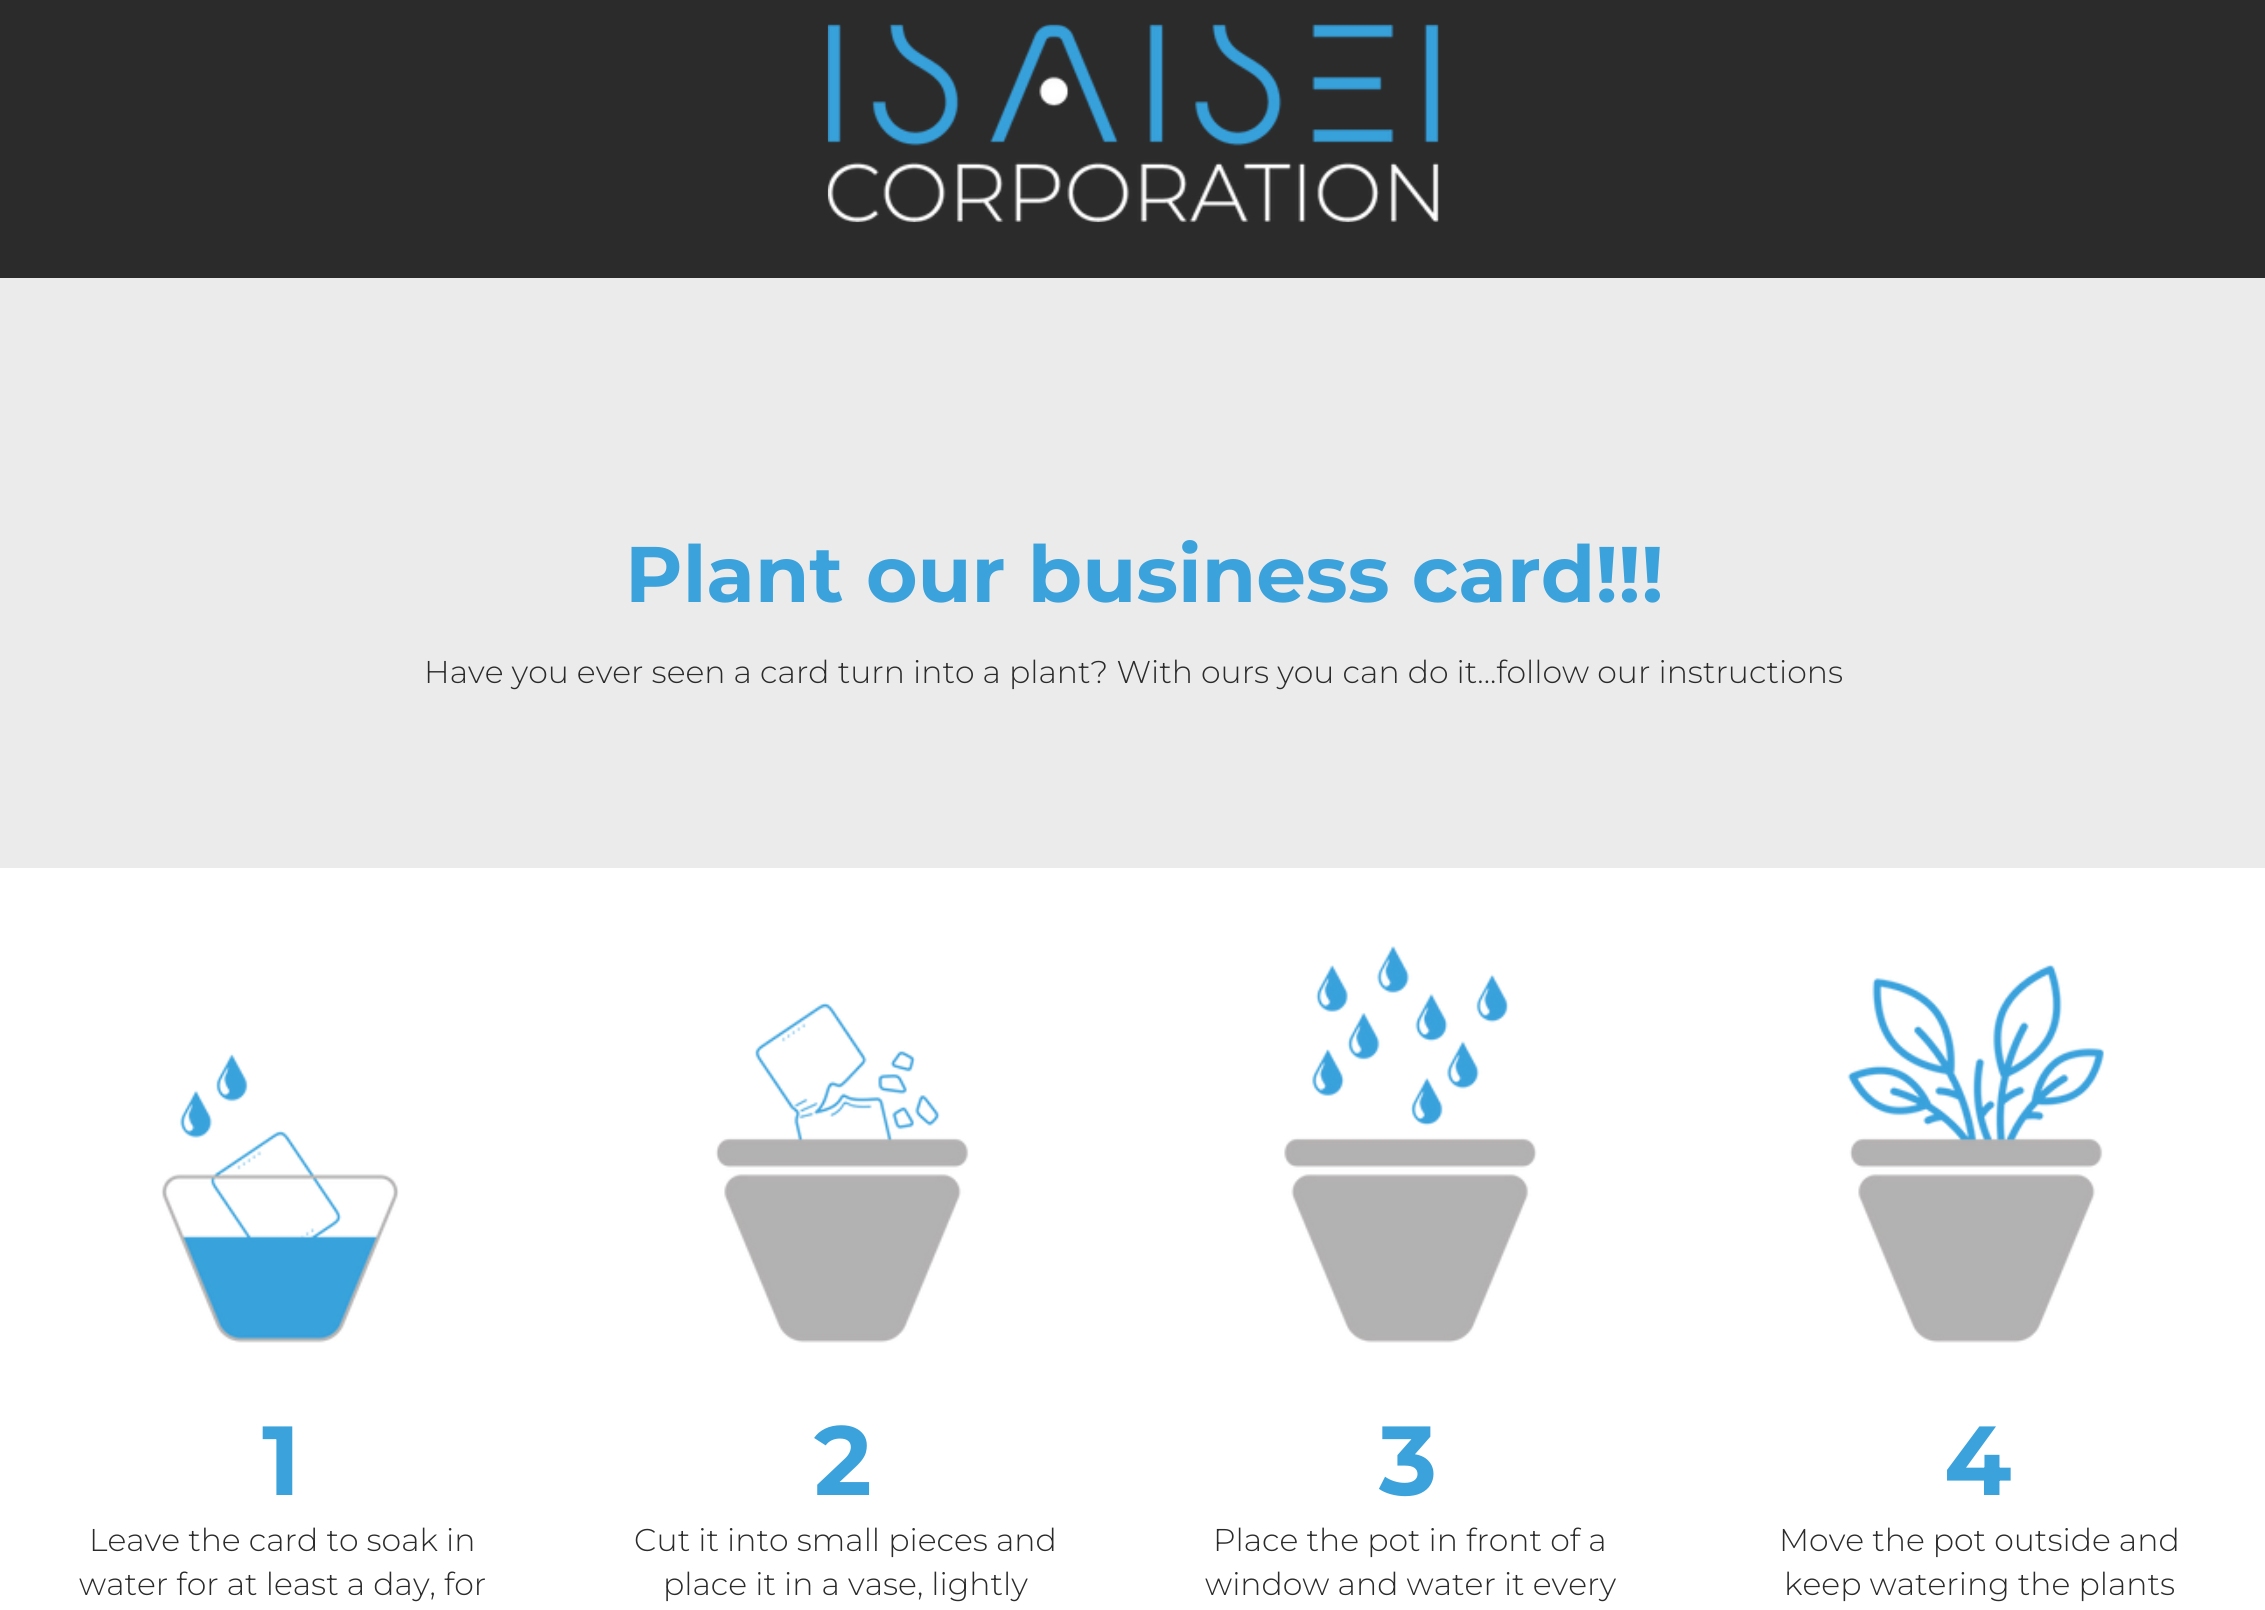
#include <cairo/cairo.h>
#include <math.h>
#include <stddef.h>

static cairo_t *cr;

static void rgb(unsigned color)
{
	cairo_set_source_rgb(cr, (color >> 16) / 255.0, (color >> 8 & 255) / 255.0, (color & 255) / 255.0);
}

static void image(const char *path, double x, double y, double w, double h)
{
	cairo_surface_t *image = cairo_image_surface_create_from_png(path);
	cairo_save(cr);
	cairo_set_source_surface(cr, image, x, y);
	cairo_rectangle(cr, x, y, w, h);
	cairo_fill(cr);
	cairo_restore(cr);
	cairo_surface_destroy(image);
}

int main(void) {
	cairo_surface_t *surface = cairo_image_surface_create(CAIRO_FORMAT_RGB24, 2265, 1610);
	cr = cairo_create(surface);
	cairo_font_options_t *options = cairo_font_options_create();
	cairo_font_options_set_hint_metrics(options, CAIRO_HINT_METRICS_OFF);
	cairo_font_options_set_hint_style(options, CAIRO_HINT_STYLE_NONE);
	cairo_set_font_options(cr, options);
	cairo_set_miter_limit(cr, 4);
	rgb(0x2b2b2b);
	cairo_paint(cr);
	image("img/1.png", 827, 24, 612, 199);
	rgb(0xebebeb);
	cairo_rectangle(cr, 0, 278, 2265, 590);
	cairo_fill(cr);
	rgb(0xffffff);
	cairo_rectangle(cr, 0, 868, 2265, 742);
	cairo_fill(cr);
	image("img/2.png", 161, 1053, 238, 290);
	image("img/3.png", 715, 1002, 254, 341);
	image("img/4.png", 1284, 946, 253, 397);
	image("img/5.png", 1847, 964, 257, 379);
	cairo_select_font_face(cr, "Montserrat", CAIRO_FONT_SLANT_NORMAL, CAIRO_FONT_WEIGHT_BOLD);
	cairo_set_font_size(cr, 78.75);
	rgb(0x3ba2dc);
	cairo_move_to(cr, 625, 602);
	cairo_show_text(cr, "Plant our business card!!!");
	cairo_select_font_face(cr, "Montserrat Light", CAIRO_FONT_SLANT_NORMAL, CAIRO_FONT_WEIGHT_NORMAL);
	cairo_set_font_size(cr, 31.5);
	rgb(0x2b2b2b);
	cairo_move_to(cr, 424, 683);
	cairo_show_text(cr, "Have you ever seen a card turn into a plant? With ours you can do it...follow our instructions");
	cairo_select_font_face(cr, "Montserrat", CAIRO_FONT_SLANT_NORMAL, CAIRO_FONT_WEIGHT_BOLD);
	cairo_set_font_size(cr, 98);
	rgb(0x3ba2dc);
	cairo_move_to(cr, 262, 1495);
	cairo_show_text(cr, "1");
	cairo_select_font_face(cr, "Montserrat Light", CAIRO_FONT_SLANT_NORMAL, CAIRO_FONT_WEIGHT_NORMAL);
	cairo_set_font_size(cr, 31.5);
	rgb(0x2b2b2b);
	cairo_move_to(cr, 89, 1551);
	cairo_show_text(cr, "Leave the card to soak in");
	cairo_move_to(cr, 79, 1595);
	cairo_show_text(cr, "water for at least a day, for");
	cairo_select_font_face(cr, "Montserrat", CAIRO_FONT_SLANT_NORMAL, CAIRO_FONT_WEIGHT_BOLD);
	cairo_set_font_size(cr, 98);
	rgb(0x3ba2dc);
	cairo_move_to(cr, 814, 1495);
	cairo_show_text(cr, "2");
	cairo_select_font_face(cr, "Montserrat Light", CAIRO_FONT_SLANT_NORMAL, CAIRO_FONT_WEIGHT_NORMAL);
	cairo_set_font_size(cr, 31.5);
	rgb(0x2b2b2b);
	cairo_move_to(cr, 634, 1551);
	cairo_show_text(cr, "Cut it into small pieces and");
	cairo_move_to(cr, 663, 1595);
	cairo_show_text(cr, "place it in a vase, lightly");
	cairo_select_font_face(cr, "Montserrat", CAIRO_FONT_SLANT_NORMAL, CAIRO_FONT_WEIGHT_BOLD);
	cairo_set_font_size(cr, 98);
	rgb(0x3ba2dc);
	cairo_move_to(cr, 1379, 1495);
	cairo_show_text(cr, "3");
	cairo_select_font_face(cr, "Montserrat Light", CAIRO_FONT_SLANT_NORMAL, CAIRO_FONT_WEIGHT_NORMAL);
	cairo_set_font_size(cr, 31.5);
	rgb(0x2b2b2b);
	cairo_move_to(cr, 1213, 1551);
	cairo_show_text(cr, "Place the pot in front of a");
	cairo_move_to(cr, 1205, 1595);
	cairo_show_text(cr, "window and water it every");
	cairo_select_font_face(cr, "Montserrat", CAIRO_FONT_SLANT_NORMAL, CAIRO_FONT_WEIGHT_BOLD);
	cairo_set_font_size(cr, 98);
	rgb(0x3ba2dc);
	cairo_move_to(cr, 1944, 1495);
	cairo_show_text(cr, "4");
	cairo_select_font_face(cr, "Montserrat Light", CAIRO_FONT_SLANT_NORMAL, CAIRO_FONT_WEIGHT_NORMAL);
	cairo_set_font_size(cr, 31.5);
	rgb(0x2b2b2b);
	cairo_move_to(cr, 1779, 1551);
	cairo_show_text(cr, "Move the pot outside and");
	cairo_move_to(cr, 1784, 1595);
	cairo_show_text(cr, "keep watering the plants");
	cairo_surface_write_to_png(surface, "page.png");
	cairo_font_options_destroy(options);
	cairo_destroy(cr);
	cairo_surface_destroy(surface);
	return 0;
}
